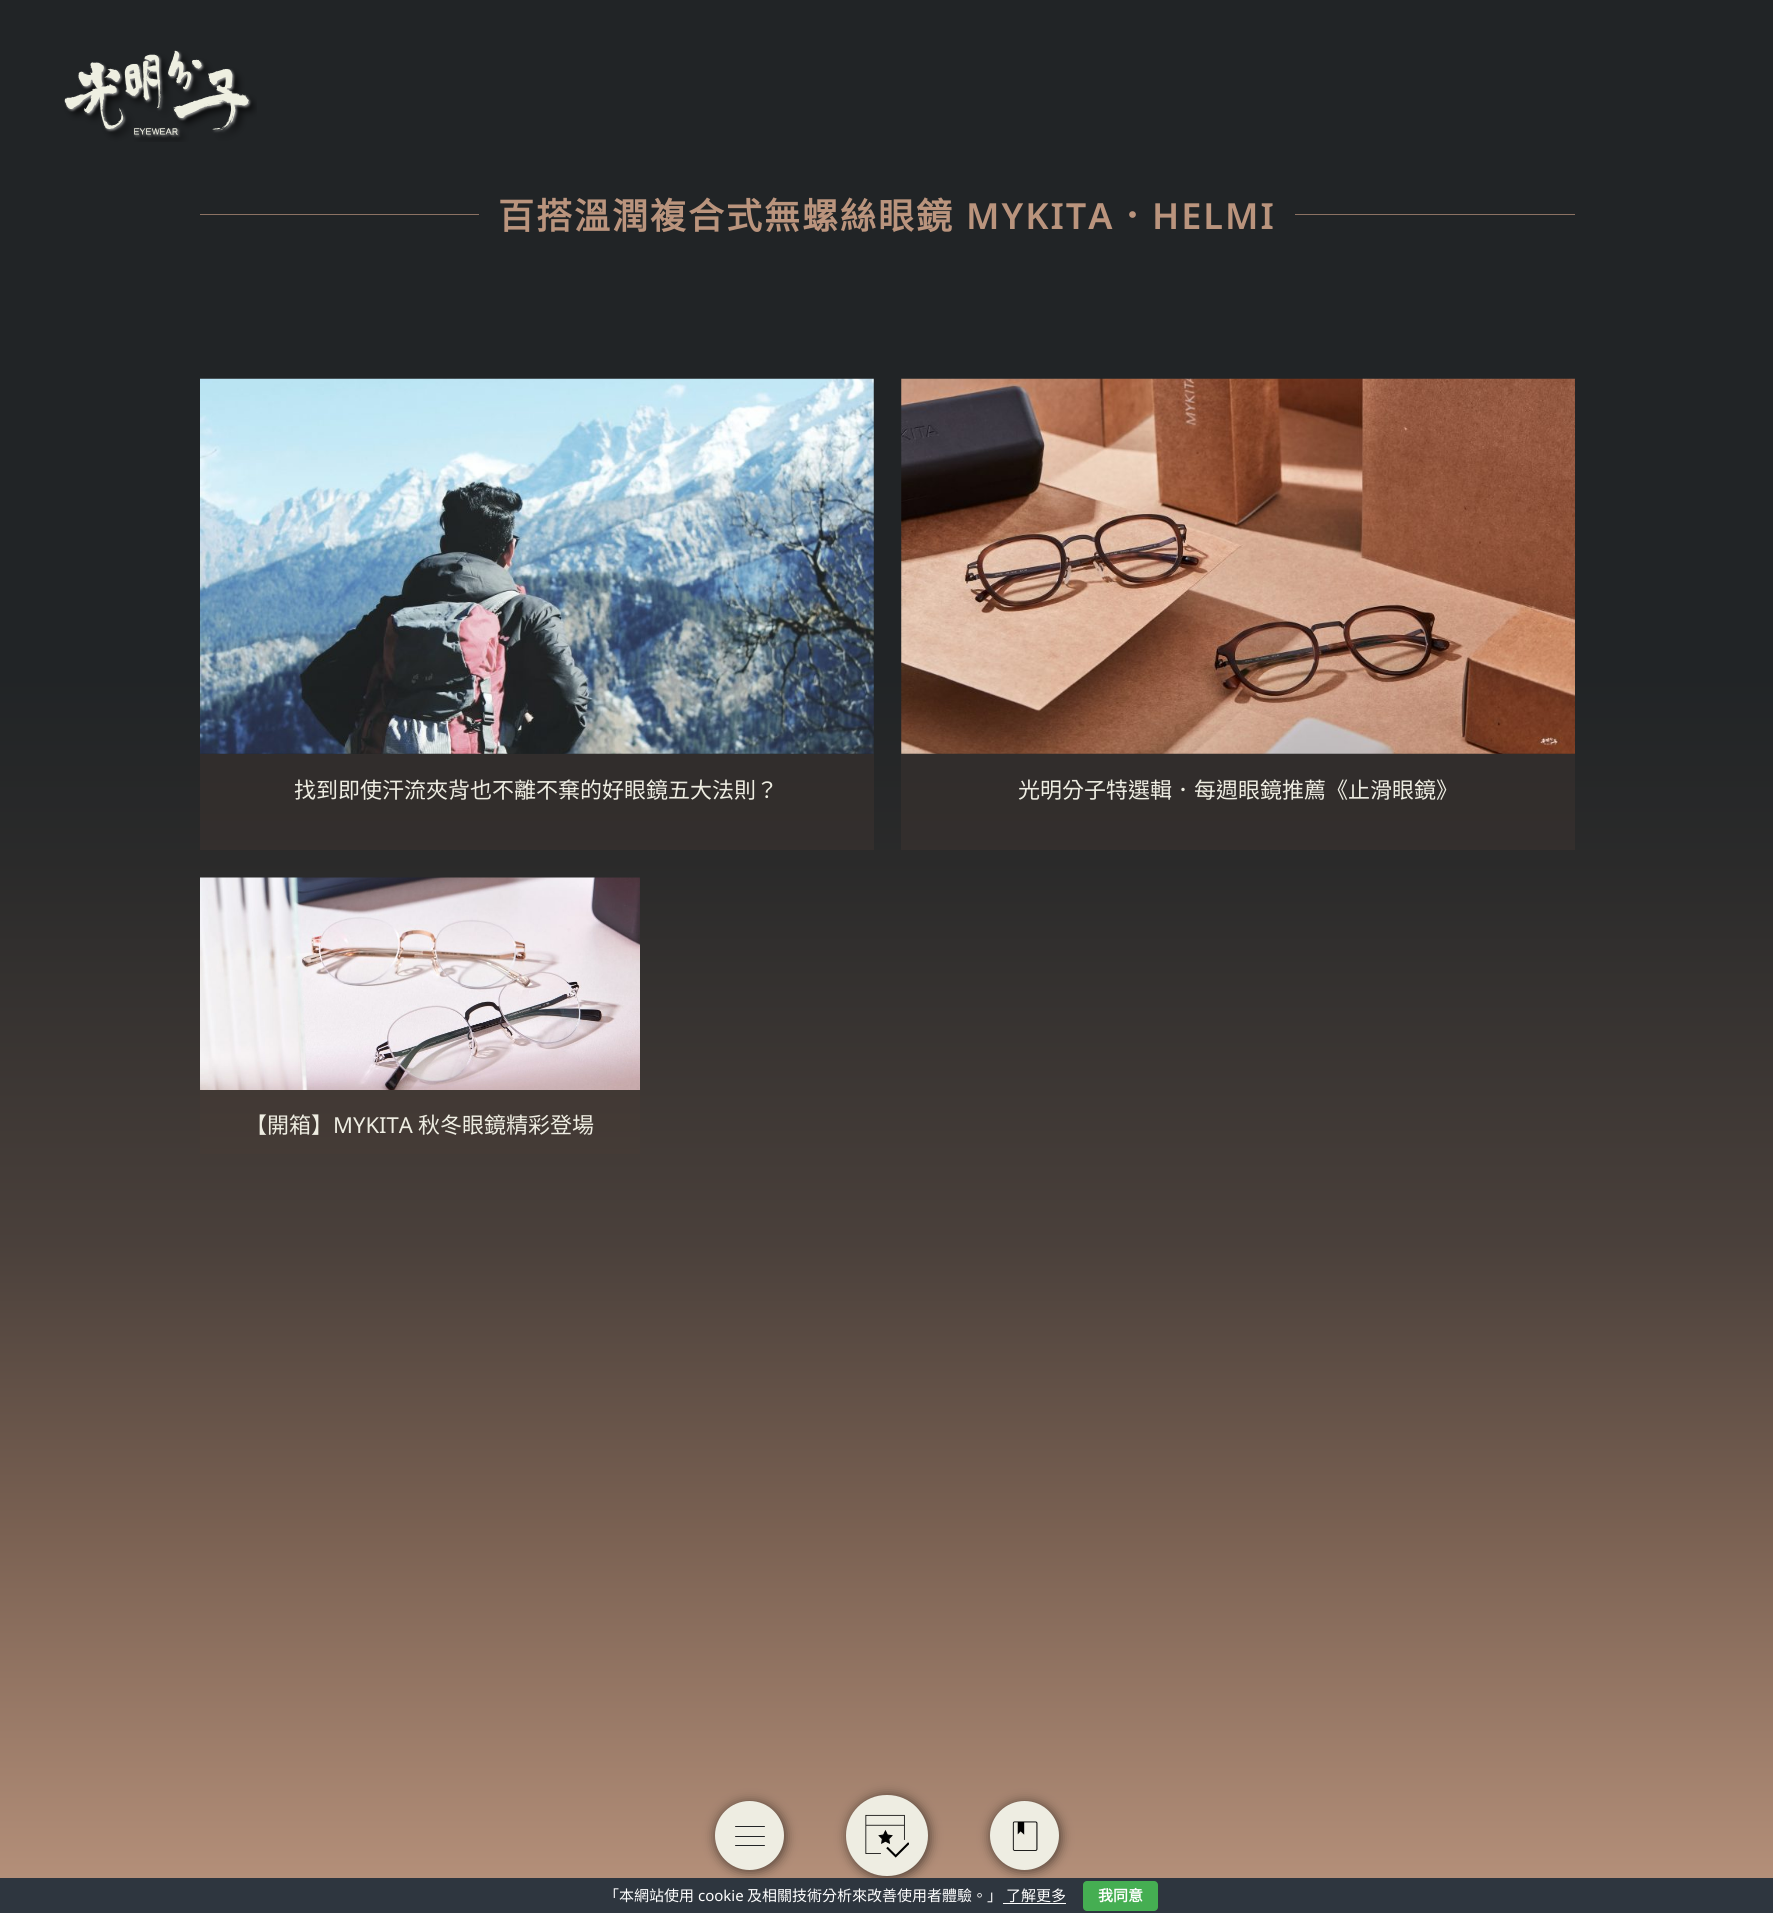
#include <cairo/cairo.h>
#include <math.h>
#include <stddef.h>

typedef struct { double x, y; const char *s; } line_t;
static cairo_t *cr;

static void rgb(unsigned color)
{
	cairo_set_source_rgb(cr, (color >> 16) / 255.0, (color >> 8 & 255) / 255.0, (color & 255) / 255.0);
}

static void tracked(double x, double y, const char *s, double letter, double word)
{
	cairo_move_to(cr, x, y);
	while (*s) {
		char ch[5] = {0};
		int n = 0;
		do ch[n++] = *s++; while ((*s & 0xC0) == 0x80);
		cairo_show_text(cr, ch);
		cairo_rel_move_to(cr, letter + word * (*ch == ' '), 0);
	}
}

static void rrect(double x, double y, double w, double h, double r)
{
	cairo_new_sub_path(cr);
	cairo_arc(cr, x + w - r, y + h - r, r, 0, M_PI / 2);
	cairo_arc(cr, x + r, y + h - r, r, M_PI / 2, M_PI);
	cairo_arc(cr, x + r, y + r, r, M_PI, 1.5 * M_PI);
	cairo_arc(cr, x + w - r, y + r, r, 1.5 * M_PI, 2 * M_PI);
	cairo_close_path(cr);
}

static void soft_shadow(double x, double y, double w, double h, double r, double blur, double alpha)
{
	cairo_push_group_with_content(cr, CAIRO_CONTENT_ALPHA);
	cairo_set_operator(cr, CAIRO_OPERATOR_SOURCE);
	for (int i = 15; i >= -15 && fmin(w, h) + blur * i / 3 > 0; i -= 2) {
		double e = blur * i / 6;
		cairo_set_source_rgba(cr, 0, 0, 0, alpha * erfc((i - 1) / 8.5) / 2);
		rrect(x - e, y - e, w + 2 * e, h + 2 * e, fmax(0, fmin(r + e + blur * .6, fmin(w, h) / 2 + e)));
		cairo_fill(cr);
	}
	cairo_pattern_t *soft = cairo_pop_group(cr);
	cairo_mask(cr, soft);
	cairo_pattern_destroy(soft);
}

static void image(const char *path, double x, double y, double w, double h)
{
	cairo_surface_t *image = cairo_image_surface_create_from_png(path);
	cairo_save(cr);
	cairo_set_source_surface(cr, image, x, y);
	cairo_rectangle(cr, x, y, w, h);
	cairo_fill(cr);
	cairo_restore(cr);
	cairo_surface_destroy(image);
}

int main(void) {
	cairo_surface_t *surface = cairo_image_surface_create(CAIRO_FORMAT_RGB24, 1773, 1913);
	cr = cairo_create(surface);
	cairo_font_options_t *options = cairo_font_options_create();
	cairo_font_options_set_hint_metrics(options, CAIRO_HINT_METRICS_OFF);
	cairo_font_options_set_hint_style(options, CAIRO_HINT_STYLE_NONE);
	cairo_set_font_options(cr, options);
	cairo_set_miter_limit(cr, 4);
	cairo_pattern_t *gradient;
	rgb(0xffffff);
	cairo_paint(cr);
	gradient = cairo_pattern_create_linear(887, 0, 887, 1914);
	cairo_pattern_add_color_stop_rgba(gradient, 0, 0.129, 0.141, 0.149, 1);
	cairo_pattern_add_color_stop_rgba(gradient, 0.35, 0.129, 0.141, 0.149, 1);
	cairo_pattern_add_color_stop_rgba(gradient, 0.45, 0.165, 0.165, 0.165, 1);
	cairo_pattern_add_color_stop_rgba(gradient, 0.65, 0.29, 0.251, 0.231, 1);
	cairo_pattern_add_color_stop_rgba(gradient, 0.8, 0.478, 0.38, 0.322, 1);
	cairo_pattern_add_color_stop_rgba(gradient, 1, 0.729, 0.58, 0.49, 1);
	cairo_set_source(cr, gradient);
	cairo_pattern_destroy(gradient);
	cairo_rectangle(cr, 0, 0, 1773, 1878);
	cairo_fill(cr);
	gradient = cairo_pattern_create_linear(887, 0, 887, 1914);
	cairo_pattern_add_color_stop_rgba(gradient, 0, 0.18, 0.169, 0.169, 1);
	cairo_pattern_add_color_stop_rgba(gradient, 0.35, 0.18, 0.169, 0.169, 1);
	cairo_pattern_add_color_stop_rgba(gradient, 0.45, 0.204, 0.184, 0.176, 1);
	cairo_pattern_add_color_stop_rgba(gradient, 0.65, 0.29, 0.247, 0.224, 1);
	cairo_pattern_add_color_stop_rgba(gradient, 0.8, 0.424, 0.337, 0.286, 1);
	cairo_pattern_add_color_stop_rgba(gradient, 1, 0.6, 0.478, 0.404, 1);
	cairo_set_source(cr, gradient);
	cairo_pattern_destroy(gradient);
	cairo_rectangle(cr, 200, 1090, 440, 64);
	cairo_fill(cr);
	cairo_rectangle(cr, 901, 754, 674, 96);
	cairo_fill(cr);
	cairo_rectangle(cr, 200, 754, 674, 96);
	cairo_fill(cr);
	image("img/1.png", 64, 50, 193, 92);
	rgb(0x8c7263);
	cairo_rectangle(cr, 200, 214, 279, 1);
	cairo_fill(cr);
	cairo_rectangle(cr, 1295, 214, 280, 1);
	cairo_fill(cr);
	image("img/2.png", 200, 378, 674, 376);
	image("img/3.png", 901, 378, 674, 376);
	image("img/4.png", 200, 877, 440, 213);
	rgb(0x000000);
	soft_shadow(716, 1803, 69, 68, 34, 6, 0.6);
	rgb(0xeeede2);
	cairo_arc(cr, 749.5, 1835.5, 34.5, 0, 2 * M_PI);
	cairo_fill(cr);
	rgb(0x212426);
	rrect(735, 1826, 30, 1, 0.5);
	cairo_fill(cr);
	rrect(735, 1836, 30, 1, 0.5);
	cairo_fill(cr);
	rrect(735, 1845, 30, 1, 0.5);
	cairo_fill(cr);
	rgb(0x000000);
	soft_shadow(848, 1796, 81, 82, 40.5, 6, 0.6);
	rgb(0xeeede2);
	rrect(846, 1795, 82, 81, 40.5);
	cairo_fill(cr);
	image("img/5.png", 865, 1814, 44, 44);
	rgb(0x000000);
	soft_shadow(991, 1803, 69, 68, 34, 6, 0.6);
	rgb(0xeeede2);
	cairo_arc(cr, 1024.5, 1835.5, 34.5, 0, 2 * M_PI);
	cairo_fill(cr);
	image("img/6.png", 1012, 1821, 26, 30);
	rgb(0x2e363f);
	cairo_rectangle(cr, 0, 1878, 1773, 35);
	cairo_fill(cr);
	rgb(0xffffff);
	cairo_rectangle(cr, 1003, 1903, 63, 1);
	cairo_fill(cr);
	rgb(0x45ae52);
	rrect(1083, 1881, 75, 30, 4);
	cairo_fill(cr);
	cairo_select_font_face(cr, "Noto Sans CJK TC", CAIRO_FONT_SLANT_NORMAL, CAIRO_FONT_WEIGHT_BOLD);
	cairo_set_font_size(cr, 36);
	rgb(0xba947d);
	tracked(498, 229, "百搭溫潤複合式無螺絲眼鏡", 2, 0);
	cairo_select_font_face(cr, "Noto Sans SemiBold", CAIRO_FONT_SLANT_NORMAL, CAIRO_FONT_WEIGHT_NORMAL);
	tracked(966, 229, "MYKITA", 2, 0);
	cairo_select_font_face(cr, "Noto Sans CJK TC", CAIRO_FONT_SLANT_NORMAL, CAIRO_FONT_WEIGHT_BOLD);
	tracked(1114, 229, "．", 2, 0);
	cairo_select_font_face(cr, "Noto Sans SemiBold", CAIRO_FONT_SLANT_NORMAL, CAIRO_FONT_WEIGHT_NORMAL);
	tracked(1152, 229, "HELMI", 2, 0);
	cairo_select_font_face(cr, "Noto Sans CJK TC", CAIRO_FONT_SLANT_NORMAL, CAIRO_FONT_WEIGHT_NORMAL);
	cairo_set_font_size(cr, 22);
	rgb(0xeeede2);
	{
		static const line_t items[] = {
			{294, 798, "找到即使汗流夾背也不離不棄的好眼鏡五大法則？"},
			{1018, 798, "光明分子特選輯．每週眼鏡推薦《止滑眼鏡》"},
			{245, 1133, "【開箱】"},
		};
		for (size_t i = 0; i < sizeof items / sizeof *items; i++) {
			cairo_move_to(cr, items[i].x, items[i].y);
			cairo_show_text(cr, items[i].s);
		}
	}
	cairo_select_font_face(cr, "Noto Sans", CAIRO_FONT_SLANT_NORMAL, CAIRO_FONT_WEIGHT_NORMAL);
	cairo_move_to(cr, 333, 1133);
	cairo_show_text(cr, "MYKITA");
	cairo_select_font_face(cr, "Noto Sans CJK TC", CAIRO_FONT_SLANT_NORMAL, CAIRO_FONT_WEIGHT_NORMAL);
	cairo_move_to(cr, 418, 1133);
	cairo_show_text(cr, "秋冬眼鏡精彩登場");
	cairo_set_font_size(cr, 15);
	rgb(0xffffff);
	cairo_move_to(cr, 604, 1901);
	cairo_show_text(cr, "「本網站使用");
	cairo_select_font_face(cr, "Noto Sans", CAIRO_FONT_SLANT_NORMAL, CAIRO_FONT_WEIGHT_NORMAL);
	cairo_move_to(cr, 698, 1901);
	cairo_show_text(cr, "cookie");
	cairo_select_font_face(cr, "Noto Sans CJK TC", CAIRO_FONT_SLANT_NORMAL, CAIRO_FONT_WEIGHT_NORMAL);
	cairo_move_to(cr, 747, 1901);
	cairo_show_text(cr, "及相關技術分析來改善使用者體驗。」");
	cairo_move_to(cr, 1006, 1901);
	cairo_show_text(cr, "了解更多");
	cairo_select_font_face(cr, "Noto Sans CJK TC", CAIRO_FONT_SLANT_NORMAL, CAIRO_FONT_WEIGHT_BOLD);
	cairo_move_to(cr, 1098, 1901);
	cairo_show_text(cr, "我同意");
	cairo_surface_write_to_png(surface, "page.png");
	cairo_font_options_destroy(options);
	cairo_destroy(cr);
	cairo_surface_destroy(surface);
	return 0;
}
